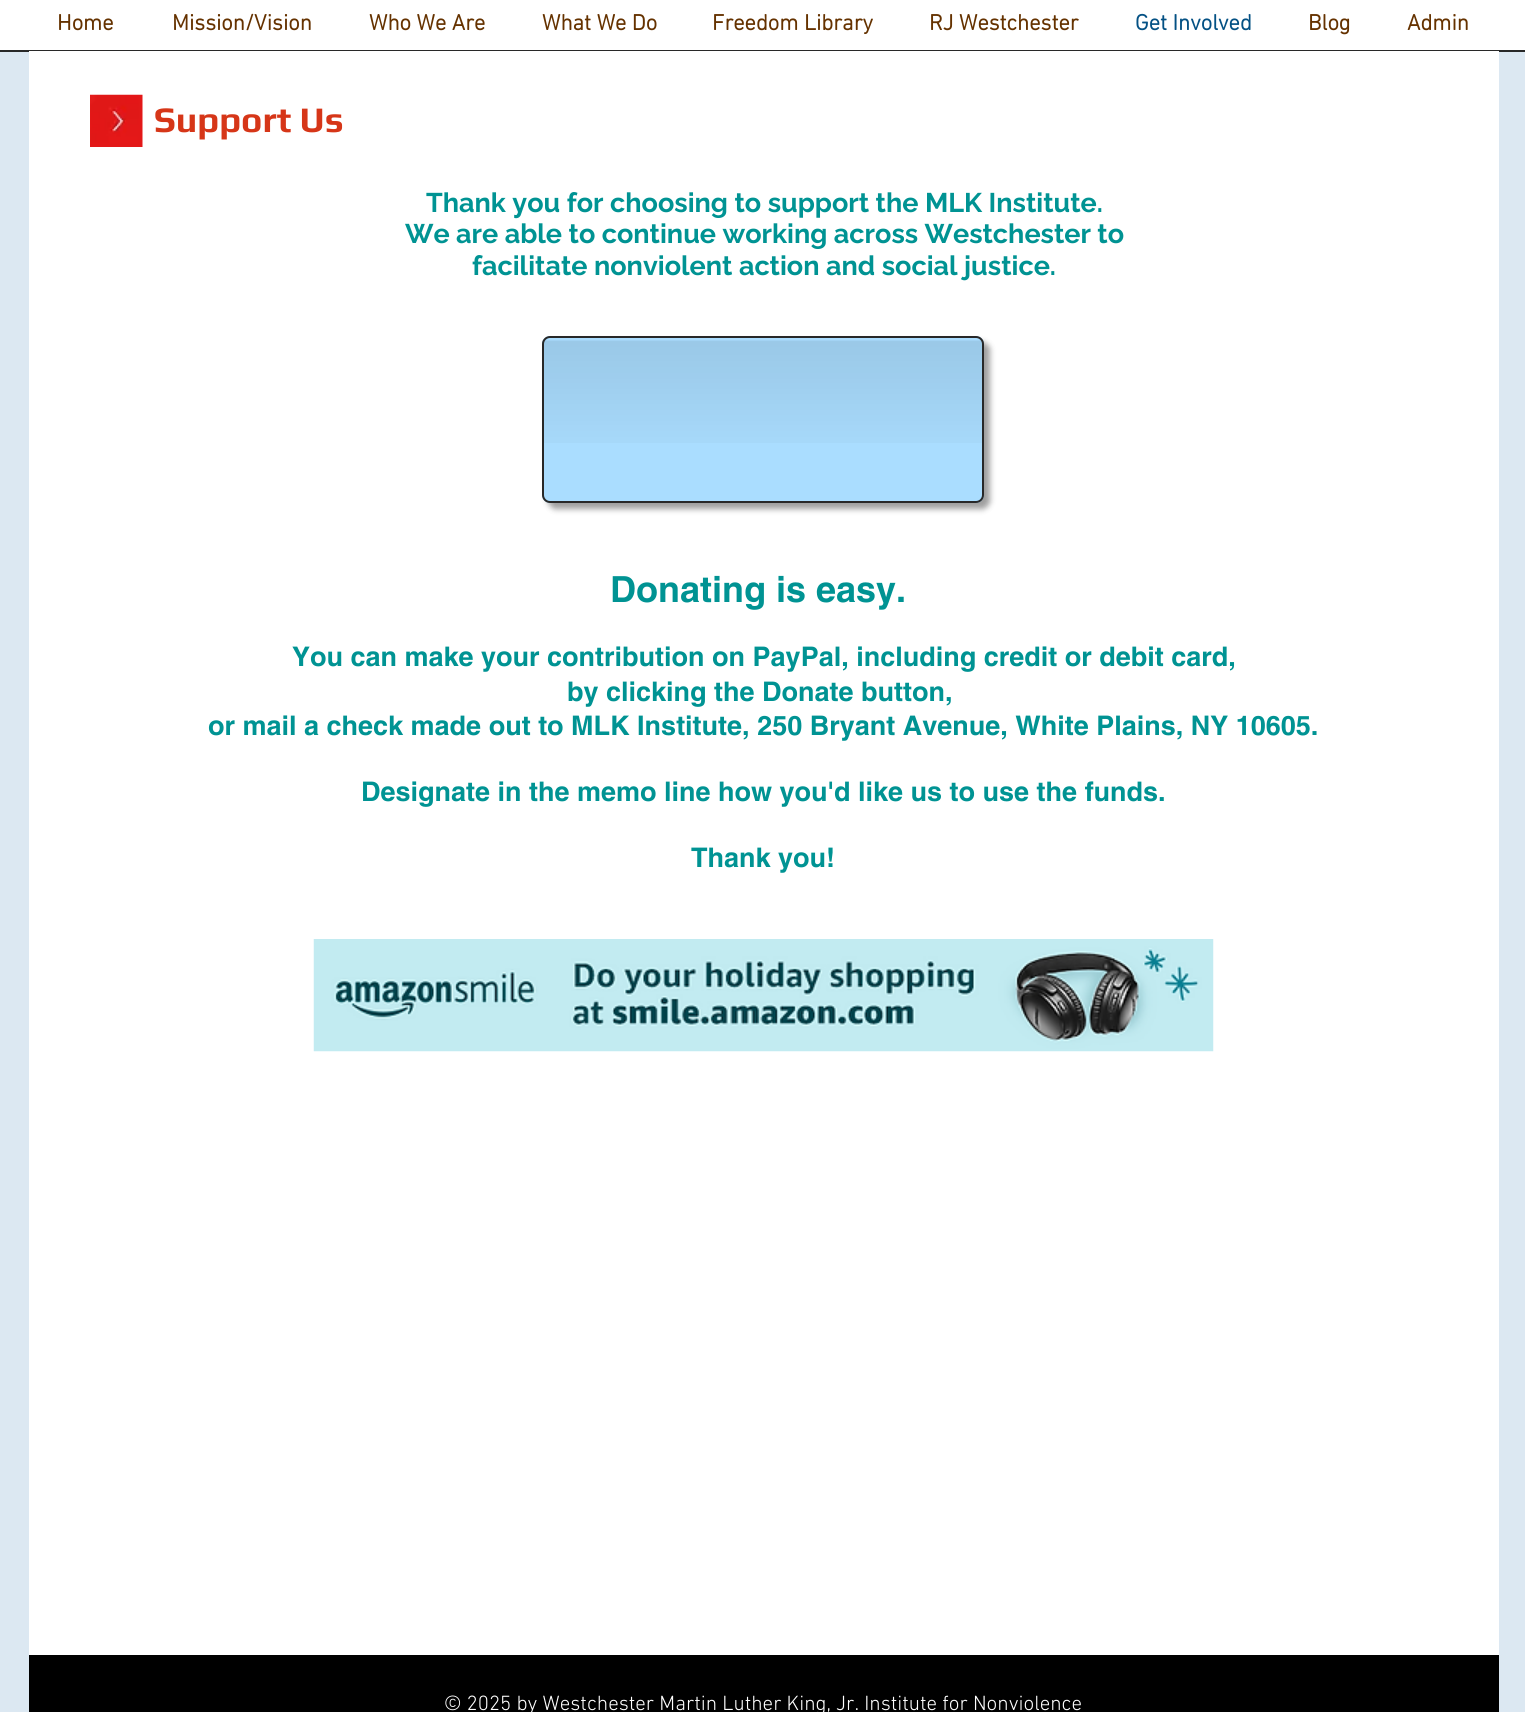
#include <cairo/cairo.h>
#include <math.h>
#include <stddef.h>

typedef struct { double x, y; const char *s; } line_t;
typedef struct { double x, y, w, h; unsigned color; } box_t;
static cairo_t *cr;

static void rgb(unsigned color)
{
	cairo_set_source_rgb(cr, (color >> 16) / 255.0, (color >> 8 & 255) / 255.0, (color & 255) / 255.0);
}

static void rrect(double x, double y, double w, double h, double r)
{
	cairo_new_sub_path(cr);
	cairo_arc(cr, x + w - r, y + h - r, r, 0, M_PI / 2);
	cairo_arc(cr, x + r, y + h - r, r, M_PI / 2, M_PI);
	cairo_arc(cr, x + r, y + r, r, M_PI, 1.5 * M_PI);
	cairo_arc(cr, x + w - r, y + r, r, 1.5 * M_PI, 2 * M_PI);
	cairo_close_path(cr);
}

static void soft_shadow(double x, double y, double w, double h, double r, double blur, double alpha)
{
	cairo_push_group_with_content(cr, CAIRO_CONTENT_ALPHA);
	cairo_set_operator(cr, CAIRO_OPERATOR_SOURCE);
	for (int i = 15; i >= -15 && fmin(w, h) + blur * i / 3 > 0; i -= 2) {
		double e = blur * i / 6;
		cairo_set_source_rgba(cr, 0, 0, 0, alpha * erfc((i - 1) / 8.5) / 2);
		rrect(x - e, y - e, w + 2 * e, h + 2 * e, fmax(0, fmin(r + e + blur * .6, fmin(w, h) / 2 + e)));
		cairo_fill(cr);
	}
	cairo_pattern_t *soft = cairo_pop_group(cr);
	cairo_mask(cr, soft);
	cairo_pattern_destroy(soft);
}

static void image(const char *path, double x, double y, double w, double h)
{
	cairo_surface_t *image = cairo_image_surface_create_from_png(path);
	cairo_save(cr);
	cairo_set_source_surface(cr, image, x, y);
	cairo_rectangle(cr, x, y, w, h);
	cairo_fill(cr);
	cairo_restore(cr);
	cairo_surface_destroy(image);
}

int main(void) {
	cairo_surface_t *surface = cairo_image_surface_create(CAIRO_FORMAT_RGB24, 1525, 1712);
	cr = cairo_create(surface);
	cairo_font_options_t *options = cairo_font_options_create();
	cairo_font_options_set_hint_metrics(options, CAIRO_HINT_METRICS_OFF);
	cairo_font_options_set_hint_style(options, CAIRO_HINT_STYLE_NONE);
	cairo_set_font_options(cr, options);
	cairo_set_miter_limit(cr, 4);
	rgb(0xdce8f2);
	cairo_paint(cr);
	{
		static const box_t items[] = {
			{0, 0, 1525, 50, 0xffffff},
			{0, 50, 1525, 2, 0x282828},
			{29, 51, 1470, 1604, 0xffffff},
		};
		for (size_t i = 0; i < sizeof items / sizeof *items; i++) {
			rgb(items[i].color);
			cairo_rectangle(cr, items[i].x, items[i].y, items[i].w, items[i].h);
			cairo_fill(cr);
		}
	}
	image("img/1.png", 90, 94, 53, 53);
	rgb(0x000000);
	soft_shadow(548, 342, 442, 167, 8, 3, 0.38);
	rgb(0xaaddff);
	rrect(542, 336, 442, 167, 8);
	cairo_fill(cr);
	image("img/2.png", 542, 340, 442, 103);
	rrect(543, 337, 440, 165, 7);
	rgb(0x282828);
	cairo_stroke(cr);
	image("img/3.png", 313, 939, 901, 113);
	rgb(0x000000);
	cairo_rectangle(cr, 29, 1655, 1470, 57);
	cairo_fill(cr);
	cairo_select_font_face(cr, "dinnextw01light", CAIRO_FONT_SLANT_NORMAL, CAIRO_FONT_WEIGHT_BOLD);
	cairo_set_font_size(cr, 22.5);
	rgb(0x653200);
	{
		static const line_t items[] = {
			{57, 30, "Home"},
			{172, 30, "Mission/Vision"},
			{369, 30, "Who We Are"},
			{542, 30, "What We Do"},
			{712, 30, "Freedom Library"},
			{929, 30, "RJ Westchester"},
		};
		for (size_t i = 0; i < sizeof items / sizeof *items; i++) {
			cairo_move_to(cr, items[i].x, items[i].y);
			cairo_show_text(cr, items[i].s);
		}
	}
	rgb(0x045184);
	cairo_move_to(cr, 1135, 30);
	cairo_show_text(cr, "Get Involved");
	rgb(0x653200);
	cairo_move_to(cr, 1308, 30);
	cairo_show_text(cr, "Blog");
	cairo_move_to(cr, 1407, 30);
	cairo_show_text(cr, "Admin");
	cairo_select_font_face(cr, "Play", CAIRO_FONT_SLANT_NORMAL, CAIRO_FONT_WEIGHT_BOLD);
	cairo_set_font_size(cr, 36);
	rgb(0xd63618);
	cairo_move_to(cr, 154, 132);
	cairo_show_text(cr, "Support Us");
	cairo_select_font_face(cr, "Raleway", CAIRO_FONT_SLANT_NORMAL, CAIRO_FONT_WEIGHT_BOLD);
	cairo_set_font_size(cr, 27);
	rgb(0x009393);
	{
		static const line_t items[] = {
			{426, 212, "Thank you for choosing to support the MLK Institute."},
			{405, 243, "We are able to continue working across Westchester to"},
			{472, 275, "facilitate nonviolent action and social justice."},
		};
		for (size_t i = 0; i < sizeof items / sizeof *items; i++) {
			cairo_move_to(cr, items[i].x, items[i].y);
			cairo_show_text(cr, items[i].s);
		}
	}
	cairo_select_font_face(cr, "helvetica", CAIRO_FONT_SLANT_NORMAL, CAIRO_FONT_WEIGHT_BOLD);
	cairo_set_font_size(cr, 36);
	cairo_move_to(cr, 610, 602);
	cairo_show_text(cr, "Donating is easy.");
	cairo_set_font_size(cr, 27);
	{
		static const line_t items[] = {
			{292, 666, "You can make your contribution on PayPal, including credit or debit card,"},
			{567, 701, "by clicking the Donate button,"},
			{208, 735, "or mail a check made out to MLK Institute, 250 Bryant Avenue, White Plains, NY 10605."},
			{361, 801, "Designate in the memo line how you'd like us to use the funds."},
			{691, 867, "Thank you!"},
		};
		for (size_t i = 0; i < sizeof items / sizeof *items; i++) {
			cairo_move_to(cr, items[i].x, items[i].y);
			cairo_show_text(cr, items[i].s);
		}
	}
	cairo_select_font_face(cr, "dinnextw01light Light", CAIRO_FONT_SLANT_NORMAL, CAIRO_FONT_WEIGHT_NORMAL);
	cairo_set_font_size(cr, 21);
	rgb(0xffffff);
	cairo_move_to(cr, 444, 1710);
	cairo_show_text(cr, "© 2025 by Westchester Martin Luther King, Jr. Institute for Nonviolence");
	cairo_surface_write_to_png(surface, "page.png");
	cairo_font_options_destroy(options);
	cairo_destroy(cr);
	cairo_surface_destroy(surface);
	return 0;
}
